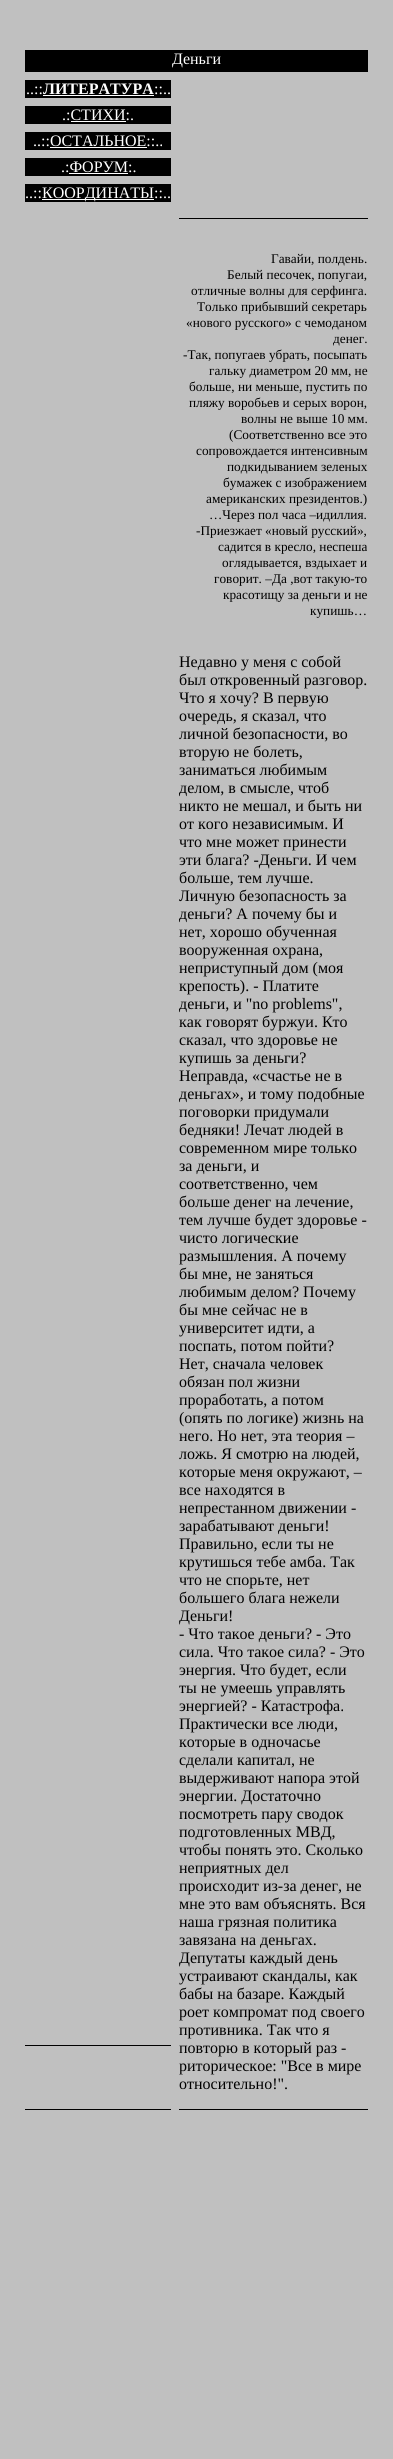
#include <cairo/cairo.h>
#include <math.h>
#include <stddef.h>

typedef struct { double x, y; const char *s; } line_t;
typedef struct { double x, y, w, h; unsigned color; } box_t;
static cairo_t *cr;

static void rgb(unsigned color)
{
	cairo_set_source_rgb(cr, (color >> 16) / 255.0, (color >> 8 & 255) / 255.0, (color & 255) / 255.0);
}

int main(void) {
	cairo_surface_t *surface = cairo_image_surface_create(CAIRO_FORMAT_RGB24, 393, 2459);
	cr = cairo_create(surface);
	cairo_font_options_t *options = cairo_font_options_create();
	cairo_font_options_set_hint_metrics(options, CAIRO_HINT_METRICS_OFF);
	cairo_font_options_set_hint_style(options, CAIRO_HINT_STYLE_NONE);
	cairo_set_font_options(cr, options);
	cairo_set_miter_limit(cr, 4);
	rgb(0xc0c0c0);
	cairo_paint(cr);
	{
		static const box_t items[] = {
			{25, 50, 343, 22, 0x000000},
			{25, 80, 146, 18, 0x000000},
			{43, 95, 111, 1, 0xffffff},
			{25, 106, 146, 18, 0x000000},
			{71, 121, 55, 1, 0xffffff},
			{25, 132, 146, 18, 0x000000},
			{50, 147, 97, 1, 0xffffff},
			{25, 158, 146, 18, 0x000000},
			{69, 173, 59, 1, 0xffffff},
			{25, 184, 146, 18, 0x000000},
			{42, 199, 112, 1, 0xffffff},
			{25, 2045, 146, 1, 0x000000},
			{25, 2109, 146, 1, 0x000000},
			{179, 218, 189, 1, 0x000000},
			{179, 2109, 189, 1, 0x000000},
		};
		for (size_t i = 0; i < sizeof items / sizeof *items; i++) {
			rgb(items[i].color);
			cairo_rectangle(cr, items[i].x, items[i].y, items[i].w, items[i].h);
			cairo_fill(cr);
		}
	}
	cairo_select_font_face(cr, "Liberation Serif", CAIRO_FONT_SLANT_NORMAL, CAIRO_FONT_WEIGHT_NORMAL);
	cairo_set_font_size(cr, 16);
	rgb(0xffffff);
	cairo_move_to(cr, 172, 64);
	cairo_show_text(cr, "Деньги");
	cairo_move_to(cr, 26, 94);
	cairo_show_text(cr, "..::");
	cairo_select_font_face(cr, "Liberation Serif", CAIRO_FONT_SLANT_NORMAL, CAIRO_FONT_WEIGHT_BOLD);
	cairo_move_to(cr, 43, 94);
	cairo_show_text(cr, "ЛИТЕРАТУРА");
	cairo_select_font_face(cr, "Liberation Serif", CAIRO_FONT_SLANT_NORMAL, CAIRO_FONT_WEIGHT_NORMAL);
	{
		static const line_t items[] = {
			{154, 94, "::.."},
			{62, 120, ".:СТИХИ:."},
			{33, 146, "..::ОСТАЛЬНОЕ::.."},
			{61, 172, ".:ФОРУМ:."},
			{25, 198, "..::"},
			{42, 198, "КООРДИНАТЫ::.."},
		};
		for (size_t i = 0; i < sizeof items / sizeof *items; i++) {
			cairo_move_to(cr, items[i].x, items[i].y);
			cairo_show_text(cr, items[i].s);
		}
	}
	cairo_set_font_size(cr, 13.3);
	rgb(0x000000);
	{
		static const line_t items[] = {
			{271, 263, "Гавайи, полдень."},
			{227, 279, "Белый песочек, попугаи,"},
			{191, 295, "отличные волны для серфинга."},
			{197, 311, "Только прибывший секретарь"},
			{186, 327, "«нового русского» с чемоданом"},
			{333, 343, "денег."},
			{183, 359, "-Так, попугаев убрать, посыпать"},
			{209, 375, "гальку диаметром 20 мм, не"},
			{189, 391, "больше, ни меньше, пустить по"},
			{189, 407, "пляжу воробьев и серых ворон,"},
			{241, 423, "волны не выше 10 мм."},
			{229, 439, "(Соответственно все это"},
			{196, 455, "сопровождается интенсивным"},
			{227, 471, "подкидыванием зеленых"},
			{223, 487, "бумажек с изображением"},
			{206, 503, "американских президентов.)"},
			{209, 519, "…Через пол часа –идиллия."},
			{196, 535, "-Приезжает «новый русский»,"},
			{218, 551, "садится в кресло, неспеша"},
			{222, 567, "оглядывается, вздыхает и"},
			{214, 583, "говорит. –Да ,вот такую-то"},
			{223, 599, "красотищу за деньги и не"},
			{310, 615, "купишь…"},
		};
		for (size_t i = 0; i < sizeof items / sizeof *items; i++) {
			cairo_move_to(cr, items[i].x, items[i].y);
			cairo_show_text(cr, items[i].s);
		}
	}
	cairo_set_font_size(cr, 16);
	{
		static const line_t items[] = {
			{179, 667, "Недавно у меня с собой"},
			{179, 685, "был откровенный разговор."},
			{179, 703, "Что я хочу? В первую"},
			{179, 721, "очередь, я сказал, что"},
			{179, 739, "личной безопасности, во"},
			{179, 757, "вторую не болеть,"},
			{179, 775, "заниматься любимым"},
			{179, 793, "делом, в смысле, чтоб"},
			{179, 811, "никто не мешал, и быть ни"},
			{179, 829, "от кого независимым. И"},
			{179, 847, "что мне может принести"},
			{179, 865, "эти блага? -Деньги. И чем"},
			{179, 883, "больше, тем лучше."},
			{179, 901, "Личную безопасность за"},
			{179, 919, "деньги? А почему бы и"},
			{179, 937, "нет, хорошо обученная"},
			{179, 955, "вооруженная охрана,"},
			{179, 973, "неприступный дом (моя"},
			{179, 991, "крепость). - Платите"},
			{179, 1009, "деньги, и \"no problems\","},
			{179, 1027, "как говорят буржуи. Кто"},
			{179, 1045, "сказал, что здоровье не"},
			{179, 1063, "купишь за деньги?"},
			{179, 1081, "Неправда, «счастье не в"},
			{179, 1099, "деньгах», и тому подобные"},
			{179, 1117, "поговорки придумали"},
			{179, 1135, "бедняки! Лечат людей в"},
			{179, 1153, "современном мире только"},
			{179, 1171, "за деньги, и"},
			{179, 1189, "соответственно, чем"},
			{179, 1207, "больше денег на лечение,"},
			{179, 1225, "тем лучше будет здоровье -"},
			{179, 1243, "чисто логические"},
			{179, 1261, "размышления. А почему"},
			{179, 1279, "бы мне, не заняться"},
			{179, 1297, "любимым делом? Почему"},
			{179, 1315, "бы мне сейчас не в"},
			{179, 1333, "университет идти, а"},
			{179, 1351, "поспать, потом пойти?"},
			{179, 1369, "Нет, сначала человек"},
			{179, 1387, "обязан пол жизни"},
			{179, 1405, "проработать, а потом"},
			{179, 1423, "(опять по логике) жизнь на"},
			{179, 1441, "него. Но нет, эта теория –"},
			{179, 1459, "ложь. Я смотрю на людей,"},
			{179, 1477, "которые меня окружают, –"},
			{179, 1495, "все находятся в"},
			{179, 1513, "непрестанном движении -"},
			{179, 1531, "зарабатывают деньги!"},
			{179, 1549, "Правильно, если ты не"},
			{179, 1567, "крутишься тебе амба. Так"},
			{179, 1585, "что не спорьте, нет"},
			{179, 1603, "большего блага нежели"},
			{179, 1621, "Деньги!"},
			{179, 1639, "- Что такое деньги? - Это"},
			{179, 1657, "сила. Что такое сила? - Это"},
			{179, 1675, "энергия. Что будет, если"},
			{179, 1693, "ты не умеешь управлять"},
			{179, 1711, "энергией? - Катастрофа."},
			{179, 1729, "Практически все люди,"},
			{179, 1747, "которые в одночасье"},
			{179, 1765, "сделали капитал, не"},
			{179, 1783, "выдерживают напора этой"},
			{179, 1801, "энергии. Достаточно"},
			{179, 1819, "посмотреть пару сводок"},
			{179, 1837, "подготовленных МВД,"},
			{179, 1855, "чтобы понять это. Сколько"},
			{179, 1873, "неприятных дел"},
			{179, 1891, "происходит из-за денег, не"},
			{179, 1909, "мне это вам объяснять. Вся"},
			{179, 1927, "наша грязная политика"},
			{179, 1945, "завязана на деньгах."},
			{179, 1963, "Депутаты каждый день"},
			{179, 1981, "устраивают скандалы, как"},
			{179, 1999, "бабы на базаре. Каждый"},
			{179, 2017, "роет компромат под своего"},
			{179, 2035, "противника. Так что я"},
			{179, 2053, "повторю в который раз -"},
			{179, 2071, "риторическое: \"Все в мире"},
			{179, 2089, "относительно!\"."},
		};
		for (size_t i = 0; i < sizeof items / sizeof *items; i++) {
			cairo_move_to(cr, items[i].x, items[i].y);
			cairo_show_text(cr, items[i].s);
		}
	}
	cairo_surface_write_to_png(surface, "page.png");
	cairo_font_options_destroy(options);
	cairo_destroy(cr);
	cairo_surface_destroy(surface);
	return 0;
}
